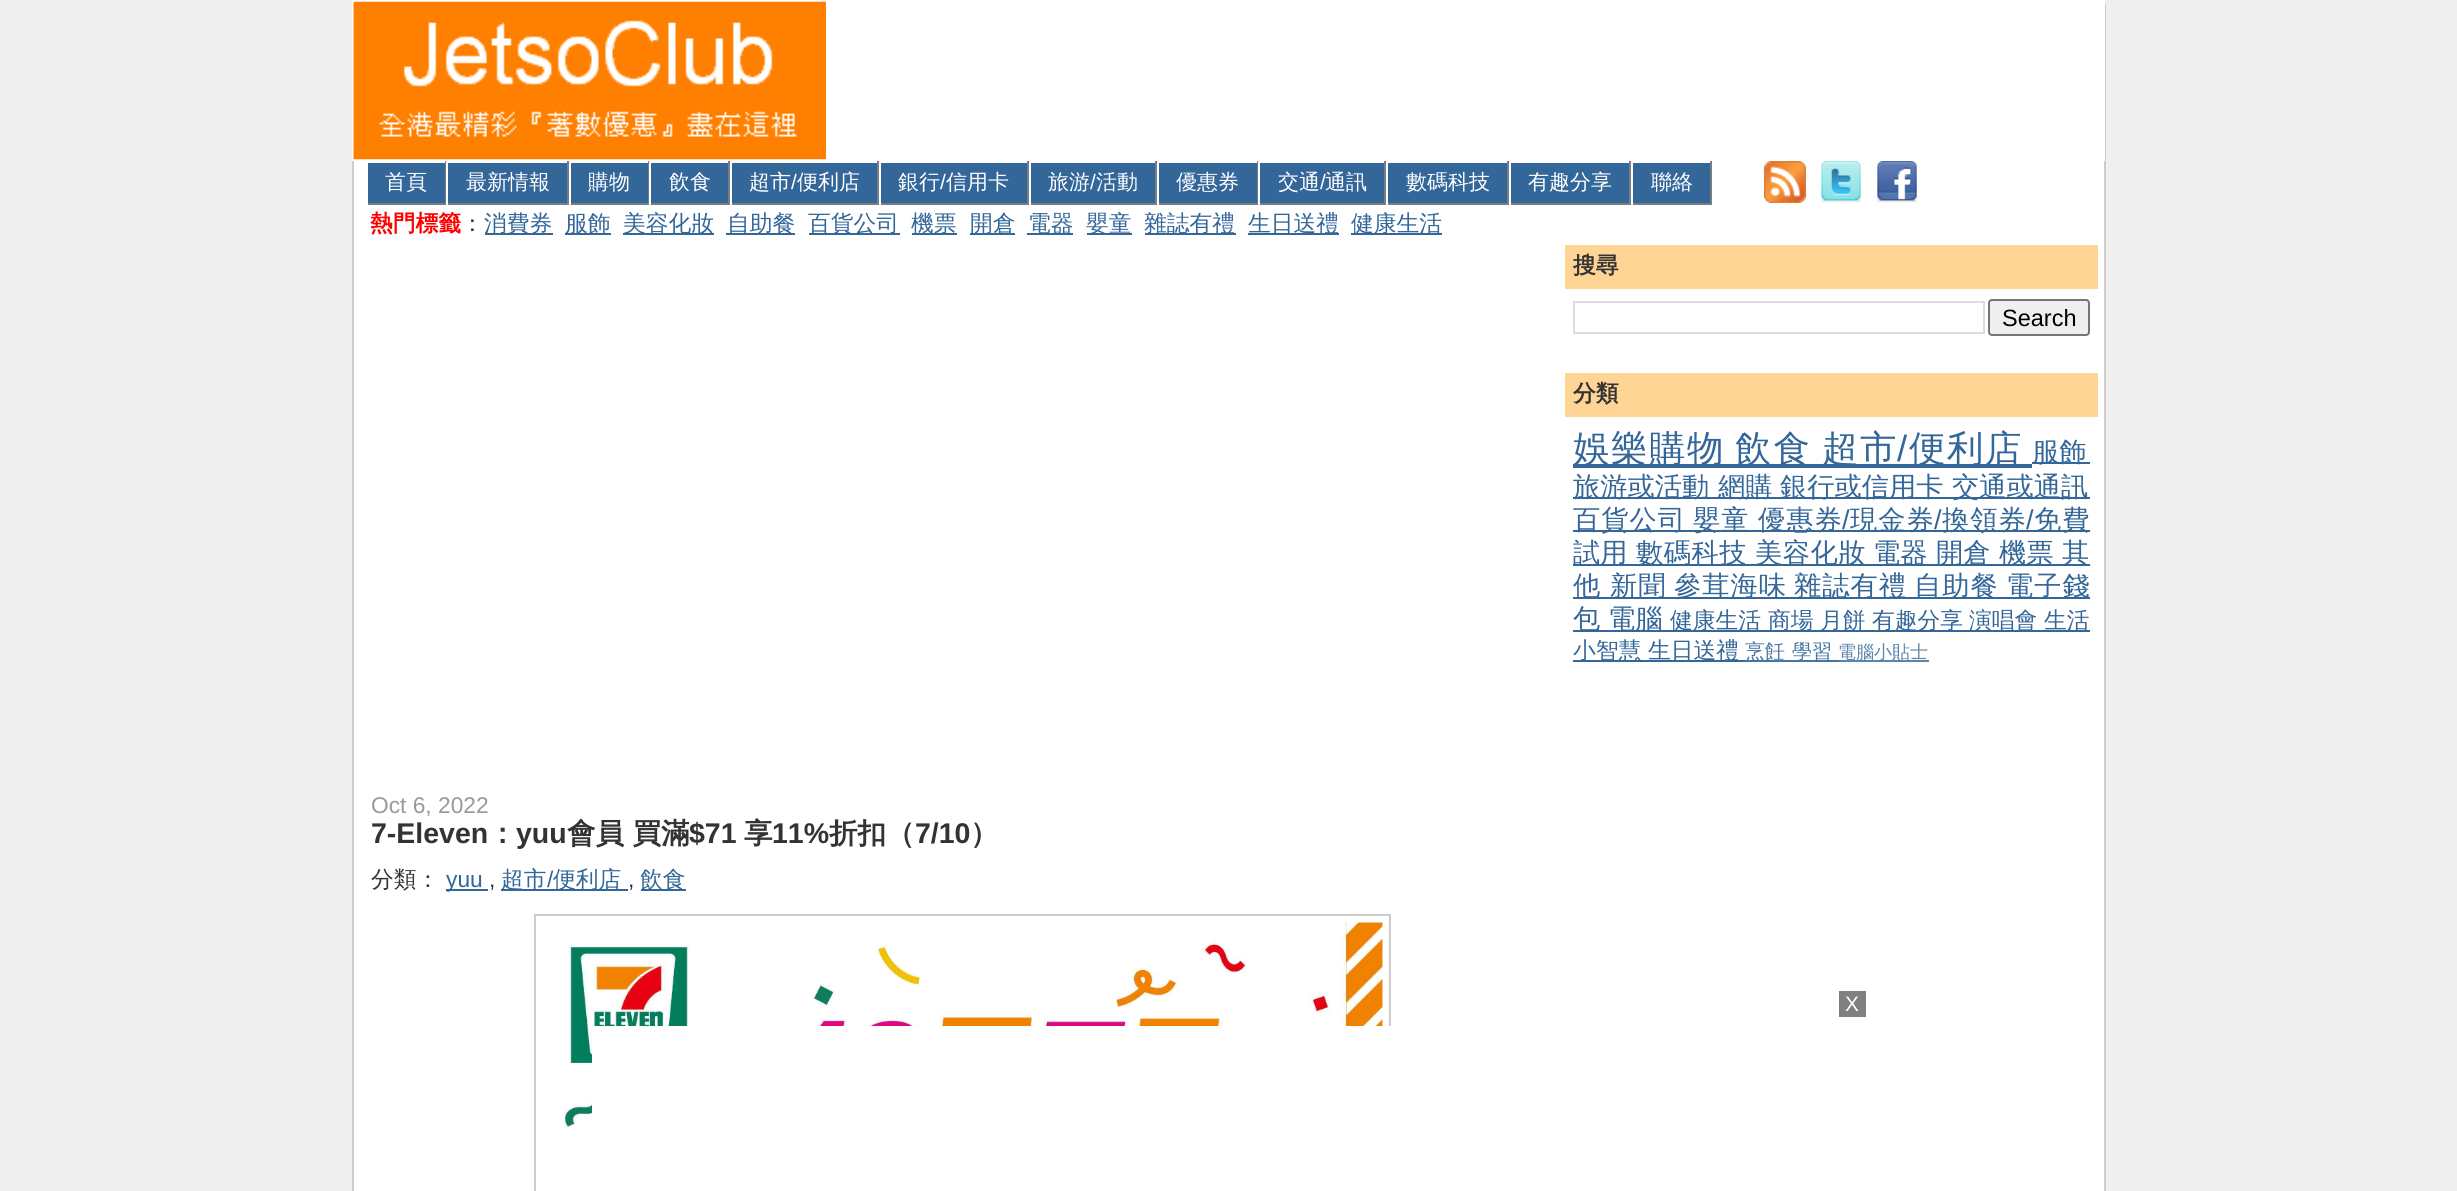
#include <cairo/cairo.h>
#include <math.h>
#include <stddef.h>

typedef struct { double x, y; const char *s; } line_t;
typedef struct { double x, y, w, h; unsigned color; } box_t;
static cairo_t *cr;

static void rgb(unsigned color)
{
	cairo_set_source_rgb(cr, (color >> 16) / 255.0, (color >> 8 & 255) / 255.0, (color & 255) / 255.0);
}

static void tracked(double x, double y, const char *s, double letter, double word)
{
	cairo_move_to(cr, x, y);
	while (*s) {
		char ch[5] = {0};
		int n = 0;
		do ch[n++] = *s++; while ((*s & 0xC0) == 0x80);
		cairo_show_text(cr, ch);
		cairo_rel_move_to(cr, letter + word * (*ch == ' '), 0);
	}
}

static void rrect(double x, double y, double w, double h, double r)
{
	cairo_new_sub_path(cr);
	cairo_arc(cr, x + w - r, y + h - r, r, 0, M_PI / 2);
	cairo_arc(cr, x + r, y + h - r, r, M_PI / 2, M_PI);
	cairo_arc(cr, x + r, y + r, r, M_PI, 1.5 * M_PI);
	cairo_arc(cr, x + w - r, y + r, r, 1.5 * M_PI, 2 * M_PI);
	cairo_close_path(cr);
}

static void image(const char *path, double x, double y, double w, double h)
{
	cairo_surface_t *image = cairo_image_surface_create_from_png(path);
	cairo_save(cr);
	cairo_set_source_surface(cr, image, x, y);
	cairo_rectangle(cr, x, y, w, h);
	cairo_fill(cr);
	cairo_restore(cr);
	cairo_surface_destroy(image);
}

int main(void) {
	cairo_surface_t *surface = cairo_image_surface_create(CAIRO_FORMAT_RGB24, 2457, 1191);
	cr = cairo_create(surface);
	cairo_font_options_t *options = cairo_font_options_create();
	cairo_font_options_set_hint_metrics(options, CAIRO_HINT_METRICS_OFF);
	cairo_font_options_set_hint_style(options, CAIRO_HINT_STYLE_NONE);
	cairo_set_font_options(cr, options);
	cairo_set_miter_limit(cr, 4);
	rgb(0xefefef);
	cairo_paint(cr);
	rgb(0xcccccc);
	cairo_rectangle(cr, 2104, 4, 2, 1187);
	cairo_fill(cr);
	rgb(0xffffff);
	cairo_rectangle(cr, 352, 0, 1753, 161);
	cairo_fill(cr);
	image("img/1.png", 353, 1, 473, 159);
	{
		static const box_t items[] = {
			{354, 161, 1750, 1030, 0xffffff},
			{352, 161, 2, 1030, 0xcccccc},
			{368, 163, 1342, 40, 0x336699},
			{445, 161, 1, 44, 0x777d85},
			{366, 203, 80, 2, 0x777d85},
			{366, 203, 2, 2, 0xffffff},
			{567, 161, 2, 44, 0x777d85},
			{446, 203, 123, 2, 0x777d85},
			{446, 161, 2, 44, 0xffffff},
			{648, 161, 1, 44, 0x777d85},
			{569, 203, 80, 2, 0x777d85},
			{569, 161, 2, 44, 0xffffff},
			{728, 161, 2, 44, 0x777d85},
			{649, 203, 81, 2, 0x777d85},
			{649, 161, 2, 44, 0xffffff},
			{877, 161, 2, 44, 0x777d85},
			{730, 203, 149, 2, 0x777d85},
			{730, 161, 2, 44, 0xffffff},
			{1027, 161, 2, 44, 0x777d85},
			{879, 203, 150, 2, 0x777d85},
			{879, 161, 2, 44, 0xffffff},
			{1155, 161, 2, 44, 0x777d85},
			{1029, 203, 128, 2, 0x777d85},
			{1029, 161, 2, 44, 0xffffff},
			{1257, 161, 1, 44, 0x777d85},
			{1157, 203, 101, 2, 0x777d85},
			{1157, 161, 2, 44, 0xffffff},
			{1384, 161, 2, 44, 0x777d85},
			{1258, 203, 128, 2, 0x777d85},
			{1258, 161, 2, 44, 0xffffff},
			{1507, 161, 2, 44, 0x777d85},
			{1386, 203, 123, 2, 0x777d85},
			{1386, 161, 2, 44, 0xffffff},
			{1629, 161, 2, 44, 0x777d85},
			{1509, 203, 122, 2, 0x777d85},
			{1509, 161, 2, 44, 0xffffff},
			{1710, 161, 2, 44, 0x777d85},
			{1631, 203, 81, 2, 0x777d85},
			{1631, 161, 2, 44, 0xffffff},
		};
		for (size_t i = 0; i < sizeof items / sizeof *items; i++) {
			rgb(items[i].color);
			cairo_rectangle(cr, items[i].x, items[i].y, items[i].w, items[i].h);
			cairo_fill(cr);
		}
	}
	image("img/2.png", 1764, 161, 42, 42);
	image("img/3.png", 1821, 161, 40, 42);
	image("img/4.png", 1876, 161, 42, 42);
	{
		static const box_t items[] = {
			{485, 233, 68, 2, 0x336699},
			{565, 233, 46, 2, 0x336699},
			{623, 233, 91, 2, 0x336699},
			{726, 233, 69, 2, 0x336699},
			{809, 233, 91, 2, 0x336699},
			{912, 233, 45, 2, 0x336699},
			{970, 233, 45, 2, 0x336699},
			{1027, 233, 46, 2, 0x336699},
			{1087, 233, 45, 2, 0x336699},
			{1145, 233, 91, 2, 0x336699},
			{1248, 233, 91, 2, 0x336699},
			{1351, 233, 91, 2, 0x336699},
			{446, 889, 42, 2, 0x336699},
			{501, 889, 127, 2, 0x336699},
			{641, 889, 45, 2, 0x336699},
		};
		for (size_t i = 0; i < sizeof items / sizeof *items; i++) {
			rgb(items[i].color);
			cairo_rectangle(cr, items[i].x, items[i].y, items[i].w, items[i].h);
			cairo_fill(cr);
		}
	}
	cairo_rectangle(cr, 535, 915, 855, 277);
	rgb(0xcccccc);
	cairo_stroke(cr);
	image("img/5.png", 564, 922, 819, 269);
	rgb(0xffd595);
	cairo_rectangle(cr, 1565, 245, 533, 44);
	cairo_fill(cr);
	cairo_rectangle(cr, 1574, 302, 410, 31);
	rgb(0xdddddd);
	cairo_stroke(cr);
	rgb(0xefefef);
	rrect(1989, 300, 100, 35, 3);
	cairo_fill_preserve(cr);
	rgb(0x767676);
	cairo_stroke(cr);
	{
		static const box_t items[] = {
			{1565, 373, 533, 44, 0xffd595},
			{1573, 464, 459, 4, 0x336699},
			{2032, 462, 58, 2, 0x336699},
			{1573, 497, 517, 2, 0x336699},
			{1573, 530, 517, 2, 0x336699},
			{1573, 564, 517, 2, 0x336699},
			{1573, 597, 517, 2, 0x336699},
			{1573, 630, 517, 2, 0x336699},
			{1573, 660, 172, 2, 0x336699},
			{1745, 660, 94, 2, 0x4775a3},
			{1839, 660, 90, 2, 0x5c85ad},
			{592, 1026, 799, 165, 0xffffff},
			{1839, 991, 27, 26, 0x808080},
		};
		for (size_t i = 0; i < sizeof items / sizeof *items; i++) {
			rgb(items[i].color);
			cairo_rectangle(cr, items[i].x, items[i].y, items[i].w, items[i].h);
			cairo_fill(cr);
		}
	}
	cairo_select_font_face(cr, "WenQuanYi Zen Hei Medium", CAIRO_FONT_SLANT_NORMAL, CAIRO_FONT_WEIGHT_NORMAL);
	cairo_set_font_size(cr, 21);
	rgb(0xffffff);
	{
		static const line_t items[] = {
			{385, 189, "首頁"},
			{466, 189, "最新情報"},
			{588, 189, "購物"},
			{669, 189, "飲食"},
			{749, 189, "超市"},
		};
		for (size_t i = 0; i < sizeof items / sizeof *items; i++) {
			cairo_move_to(cr, items[i].x, items[i].y);
			cairo_show_text(cr, items[i].s);
		}
	}
	cairo_select_font_face(cr, "Liberation Sans", CAIRO_FONT_SLANT_NORMAL, CAIRO_FONT_WEIGHT_NORMAL);
	cairo_move_to(cr, 791, 189);
	cairo_show_text(cr, "/");
	cairo_select_font_face(cr, "WenQuanYi Zen Hei Medium", CAIRO_FONT_SLANT_NORMAL, CAIRO_FONT_WEIGHT_NORMAL);
	cairo_move_to(cr, 797, 189);
	cairo_show_text(cr, "便利店");
	cairo_move_to(cr, 898, 189);
	cairo_show_text(cr, "銀行");
	cairo_select_font_face(cr, "Liberation Sans", CAIRO_FONT_SLANT_NORMAL, CAIRO_FONT_WEIGHT_NORMAL);
	cairo_move_to(cr, 940, 189);
	cairo_show_text(cr, "/");
	cairo_select_font_face(cr, "WenQuanYi Zen Hei Medium", CAIRO_FONT_SLANT_NORMAL, CAIRO_FONT_WEIGHT_NORMAL);
	cairo_move_to(cr, 946, 189);
	cairo_show_text(cr, "信用卡");
	cairo_move_to(cr, 1048, 189);
	cairo_show_text(cr, "旅游");
	cairo_select_font_face(cr, "Liberation Sans", CAIRO_FONT_SLANT_NORMAL, CAIRO_FONT_WEIGHT_NORMAL);
	cairo_move_to(cr, 1090, 189);
	cairo_show_text(cr, "/");
	cairo_select_font_face(cr, "WenQuanYi Zen Hei Medium", CAIRO_FONT_SLANT_NORMAL, CAIRO_FONT_WEIGHT_NORMAL);
	{
		static const line_t items[] = {
			{1096, 189, "活動"},
			{1176, 189, "優惠券"},
			{1278, 189, "交通"},
		};
		for (size_t i = 0; i < sizeof items / sizeof *items; i++) {
			cairo_move_to(cr, items[i].x, items[i].y);
			cairo_show_text(cr, items[i].s);
		}
	}
	cairo_select_font_face(cr, "Liberation Sans", CAIRO_FONT_SLANT_NORMAL, CAIRO_FONT_WEIGHT_NORMAL);
	cairo_move_to(cr, 1320, 189);
	cairo_show_text(cr, "/");
	cairo_select_font_face(cr, "WenQuanYi Zen Hei Medium", CAIRO_FONT_SLANT_NORMAL, CAIRO_FONT_WEIGHT_NORMAL);
	{
		static const line_t items[] = {
			{1325, 189, "通訊"},
			{1406, 189, "數碼科技"},
			{1528, 189, "有趣分享"},
			{1651, 189, "聯絡"},
		};
		for (size_t i = 0; i < sizeof items / sizeof *items; i++) {
			cairo_move_to(cr, items[i].x, items[i].y);
			cairo_show_text(cr, items[i].s);
		}
	}
	cairo_select_font_face(cr, "WenQuanYi Zen Hei", CAIRO_FONT_SLANT_NORMAL, CAIRO_FONT_WEIGHT_BOLD);
	cairo_set_font_size(cr, 22.75);
	rgb(0xff0000);
	cairo_move_to(cr, 370, 231);
	cairo_show_text(cr, "熱門標籤");
	cairo_select_font_face(cr, "WenQuanYi Zen Hei Medium", CAIRO_FONT_SLANT_NORMAL, CAIRO_FONT_WEIGHT_NORMAL);
	rgb(0x333333);
	cairo_move_to(cr, 461, 231);
	cairo_show_text(cr, "：");
	rgb(0x336699);
	{
		static const line_t items[] = {
			{484, 231, "消費券"},
			{565, 231, "服飾"},
			{623, 231, "美容化妝"},
			{727, 231, "自助餐"},
			{808, 231, "百貨公司"},
			{911, 231, "機票"},
			{970, 231, "開倉"},
			{1028, 231, "電器"},
			{1086, 231, "嬰童"},
			{1144, 231, "雜誌有禮"},
			{1248, 231, "生日送禮"},
			{1351, 231, "健康生活"},
		};
		for (size_t i = 0; i < sizeof items / sizeof *items; i++) {
			cairo_move_to(cr, items[i].x, items[i].y);
			cairo_show_text(cr, items[i].s);
		}
	}
	cairo_select_font_face(cr, "Liberation Sans", CAIRO_FONT_SLANT_NORMAL, CAIRO_FONT_WEIGHT_NORMAL);
	rgb(0x999999);
	cairo_move_to(cr, 371, 813);
	cairo_show_text(cr, "Oct 6, 2022");
	cairo_select_font_face(cr, "Liberation Sans", CAIRO_FONT_SLANT_NORMAL, CAIRO_FONT_WEIGHT_BOLD);
	cairo_set_font_size(cr, 28.5);
	rgb(0x333333);
	cairo_move_to(cr, 371, 843);
	cairo_show_text(cr, "7-Eleven");
	cairo_select_font_face(cr, "WenQuanYi Zen Hei", CAIRO_FONT_SLANT_NORMAL, CAIRO_FONT_WEIGHT_BOLD);
	cairo_move_to(cr, 488, 843);
	cairo_show_text(cr, "：");
	cairo_select_font_face(cr, "Liberation Sans", CAIRO_FONT_SLANT_NORMAL, CAIRO_FONT_WEIGHT_BOLD);
	cairo_move_to(cr, 516, 843);
	cairo_show_text(cr, "yuu");
	cairo_select_font_face(cr, "WenQuanYi Zen Hei", CAIRO_FONT_SLANT_NORMAL, CAIRO_FONT_WEIGHT_BOLD);
	cairo_move_to(cr, 567, 843);
	cairo_show_text(cr, "會員 買滿");
	cairo_select_font_face(cr, "Liberation Sans", CAIRO_FONT_SLANT_NORMAL, CAIRO_FONT_WEIGHT_BOLD);
	cairo_move_to(cr, 689, 843);
	cairo_show_text(cr, "$71");
	cairo_select_font_face(cr, "WenQuanYi Zen Hei", CAIRO_FONT_SLANT_NORMAL, CAIRO_FONT_WEIGHT_BOLD);
	cairo_move_to(cr, 744, 843);
	cairo_show_text(cr, "享");
	cairo_select_font_face(cr, "Liberation Sans", CAIRO_FONT_SLANT_NORMAL, CAIRO_FONT_WEIGHT_BOLD);
	cairo_move_to(cr, 772, 843);
	cairo_show_text(cr, "11%");
	cairo_select_font_face(cr, "WenQuanYi Zen Hei", CAIRO_FONT_SLANT_NORMAL, CAIRO_FONT_WEIGHT_BOLD);
	cairo_move_to(cr, 829, 843);
	cairo_show_text(cr, "折扣（");
	cairo_select_font_face(cr, "Liberation Sans", CAIRO_FONT_SLANT_NORMAL, CAIRO_FONT_WEIGHT_BOLD);
	cairo_move_to(cr, 915, 843);
	cairo_show_text(cr, "7/10");
	cairo_select_font_face(cr, "WenQuanYi Zen Hei", CAIRO_FONT_SLANT_NORMAL, CAIRO_FONT_WEIGHT_BOLD);
	cairo_move_to(cr, 970, 843);
	cairo_show_text(cr, "）");
	cairo_select_font_face(cr, "WenQuanYi Zen Hei Medium", CAIRO_FONT_SLANT_NORMAL, CAIRO_FONT_WEIGHT_NORMAL);
	cairo_set_font_size(cr, 22.75);
	cairo_move_to(cr, 371, 887);
	cairo_show_text(cr, "分類：");
	cairo_select_font_face(cr, "Liberation Sans", CAIRO_FONT_SLANT_NORMAL, CAIRO_FONT_WEIGHT_NORMAL);
	rgb(0x336699);
	cairo_move_to(cr, 446, 887);
	cairo_show_text(cr, "yuu");
	rgb(0x333333);
	cairo_move_to(cr, 489, 887);
	cairo_show_text(cr, ",");
	cairo_select_font_face(cr, "WenQuanYi Zen Hei Medium", CAIRO_FONT_SLANT_NORMAL, CAIRO_FONT_WEIGHT_NORMAL);
	rgb(0x336699);
	cairo_move_to(cr, 501, 887);
	cairo_show_text(cr, "超市");
	cairo_select_font_face(cr, "Liberation Sans", CAIRO_FONT_SLANT_NORMAL, CAIRO_FONT_WEIGHT_NORMAL);
	cairo_move_to(cr, 547, 887);
	cairo_show_text(cr, "/");
	cairo_select_font_face(cr, "WenQuanYi Zen Hei Medium", CAIRO_FONT_SLANT_NORMAL, CAIRO_FONT_WEIGHT_NORMAL);
	cairo_move_to(cr, 553, 887);
	cairo_show_text(cr, "便利店");
	cairo_select_font_face(cr, "Liberation Sans", CAIRO_FONT_SLANT_NORMAL, CAIRO_FONT_WEIGHT_NORMAL);
	rgb(0x333333);
	cairo_move_to(cr, 628, 887);
	cairo_show_text(cr, ",");
	cairo_select_font_face(cr, "WenQuanYi Zen Hei Medium", CAIRO_FONT_SLANT_NORMAL, CAIRO_FONT_WEIGHT_NORMAL);
	rgb(0x336699);
	cairo_move_to(cr, 640, 887);
	cairo_show_text(cr, "飲食");
	cairo_select_font_face(cr, "WenQuanYi Zen Hei", CAIRO_FONT_SLANT_NORMAL, CAIRO_FONT_WEIGHT_BOLD);
	rgb(0x333333);
	cairo_move_to(cr, 1573, 273);
	cairo_show_text(cr, "搜尋");
	cairo_select_font_face(cr, "Liberation Sans", CAIRO_FONT_SLANT_NORMAL, CAIRO_FONT_WEIGHT_NORMAL);
	cairo_set_font_size(cr, 23.5);
	rgb(0x000000);
	cairo_move_to(cr, 2002, 326);
	cairo_show_text(cr, "Search");
	cairo_select_font_face(cr, "WenQuanYi Zen Hei", CAIRO_FONT_SLANT_NORMAL, CAIRO_FONT_WEIGHT_BOLD);
	cairo_set_font_size(cr, 22.75);
	rgb(0x333333);
	cairo_move_to(cr, 1573, 401);
	cairo_show_text(cr, "分類");
	cairo_select_font_face(cr, "WenQuanYi Zen Hei Medium", CAIRO_FONT_SLANT_NORMAL, CAIRO_FONT_WEIGHT_NORMAL);
	cairo_set_font_size(cr, 36.5);
	rgb(0x336699);
	tracked(1573, 461, "娛樂購物", 1.5, 0);
	tracked(1735, 461, "飲食", 2, 0);
	tracked(1822, 461, "超市", 1.5, 0);
	cairo_select_font_face(cr, "Liberation Sans", CAIRO_FONT_SLANT_NORMAL, CAIRO_FONT_WEIGHT_NORMAL);
	tracked(1897, 461, "/", 1.5, 0);
	cairo_select_font_face(cr, "WenQuanYi Zen Hei Medium", CAIRO_FONT_SLANT_NORMAL, CAIRO_FONT_WEIGHT_NORMAL);
	tracked(1909, 461, "便利店", 1.5, 0);
	cairo_set_font_size(cr, 27.25);
	{
		static const line_t items[] = {
			{2032, 461, "服飾"},
			{1573, 496, "旅游或活動"},
			{1718, 496, "網購"},
			{1780, 496, "銀行或信用卡"},
			{1952, 496, "交通或通訊"},
		};
		for (size_t i = 0; i < sizeof items / sizeof *items; i++) {
			cairo_move_to(cr, items[i].x, items[i].y);
			cairo_show_text(cr, items[i].s);
		}
	}
	{
		static const line_t items[] = {
			{1573, 529, "百貨公司"},
			{1693, 529, "嬰童"},
			{1758, 529, "優惠券"},
		};
		for (size_t i = 0; i < sizeof items / sizeof *items; i++) {
			tracked(items[i].x, items[i].y, items[i].s, 1, 0);
		}
	}
	cairo_select_font_face(cr, "Liberation Sans", CAIRO_FONT_SLANT_NORMAL, CAIRO_FONT_WEIGHT_NORMAL);
	tracked(1842, 529, "/", 1, 0);
	cairo_select_font_face(cr, "WenQuanYi Zen Hei Medium", CAIRO_FONT_SLANT_NORMAL, CAIRO_FONT_WEIGHT_NORMAL);
	tracked(1850, 529, "現金券", 1, 0);
	cairo_select_font_face(cr, "Liberation Sans", CAIRO_FONT_SLANT_NORMAL, CAIRO_FONT_WEIGHT_NORMAL);
	tracked(1934, 529, "/", 1, 0);
	cairo_select_font_face(cr, "WenQuanYi Zen Hei Medium", CAIRO_FONT_SLANT_NORMAL, CAIRO_FONT_WEIGHT_NORMAL);
	tracked(1942, 529, "換領券", 1, 0);
	cairo_select_font_face(cr, "Liberation Sans", CAIRO_FONT_SLANT_NORMAL, CAIRO_FONT_WEIGHT_NORMAL);
	tracked(2026, 529, "/", 1, 0);
	cairo_select_font_face(cr, "WenQuanYi Zen Hei Medium", CAIRO_FONT_SLANT_NORMAL, CAIRO_FONT_WEIGHT_NORMAL);
	tracked(2034, 529, "免費", 1, 0);
	cairo_move_to(cr, 1573, 562);
	cairo_show_text(cr, "試用");
	tracked(1636, 562, "數碼科技", 0.5, 0);
	tracked(1755, 562, "美容化妝", 0.5, 0);
	{
		static const line_t items[] = {
			{1873, 562, "電器"},
			{1936, 562, "開倉"},
			{1999, 562, "機票"},
			{2062, 562, "其"},
			{1573, 595, "他"},
		};
		for (size_t i = 0; i < sizeof items / sizeof *items; i++) {
			cairo_move_to(cr, items[i].x, items[i].y);
			cairo_show_text(cr, items[i].s);
		}
	}
	{
		static const line_t items[] = {
			{1610, 595, "新聞"},
			{1674, 595, "參茸海味"},
			{1794, 595, "雜誌有禮"},
			{1914, 595, "自助餐"},
			{2006, 595, "電子錢"},
		};
		for (size_t i = 0; i < sizeof items / sizeof *items; i++) {
			tracked(items[i].x, items[i].y, items[i].s, 1, 0);
		}
	}
	cairo_move_to(cr, 1573, 628);
	cairo_show_text(cr, "包");
	cairo_move_to(cr, 1608, 628);
	cairo_show_text(cr, "電腦");
	cairo_set_font_size(cr, 22.75);
	{
		static const line_t items[] = {
			{1670, 628, "健康生活"},
			{1768, 628, "商場"},
			{1820, 628, "月餅"},
			{1872, 628, "有趣分享"},
			{1969, 628, "演唱會"},
			{2044, 628, "生活"},
			{1573, 658, "小智慧"},
			{1648, 658, "生日送禮"},
		};
		for (size_t i = 0; i < sizeof items / sizeof *items; i++) {
			cairo_move_to(cr, items[i].x, items[i].y);
			cairo_show_text(cr, items[i].s);
		}
	}
	cairo_set_font_size(cr, 20);
	rgb(0x4775a3);
	cairo_move_to(cr, 1745, 658);
	cairo_show_text(cr, "烹飪");
	cairo_move_to(cr, 1792, 658);
	cairo_show_text(cr, "學習");
	cairo_set_font_size(cr, 18);
	rgb(0x5c85ad);
	cairo_move_to(cr, 1838, 658);
	cairo_show_text(cr, "電腦小貼士");
	cairo_select_font_face(cr, "Liberation Sans", CAIRO_FONT_SLANT_NORMAL, CAIRO_FONT_WEIGHT_NORMAL);
	cairo_set_font_size(cr, 21);
	rgb(0xffffff);
	cairo_move_to(cr, 1845, 1011);
	cairo_show_text(cr, "X");
	cairo_surface_write_to_png(surface, "page.png");
	cairo_font_options_destroy(options);
	cairo_destroy(cr);
	cairo_surface_destroy(surface);
	return 0;
}
